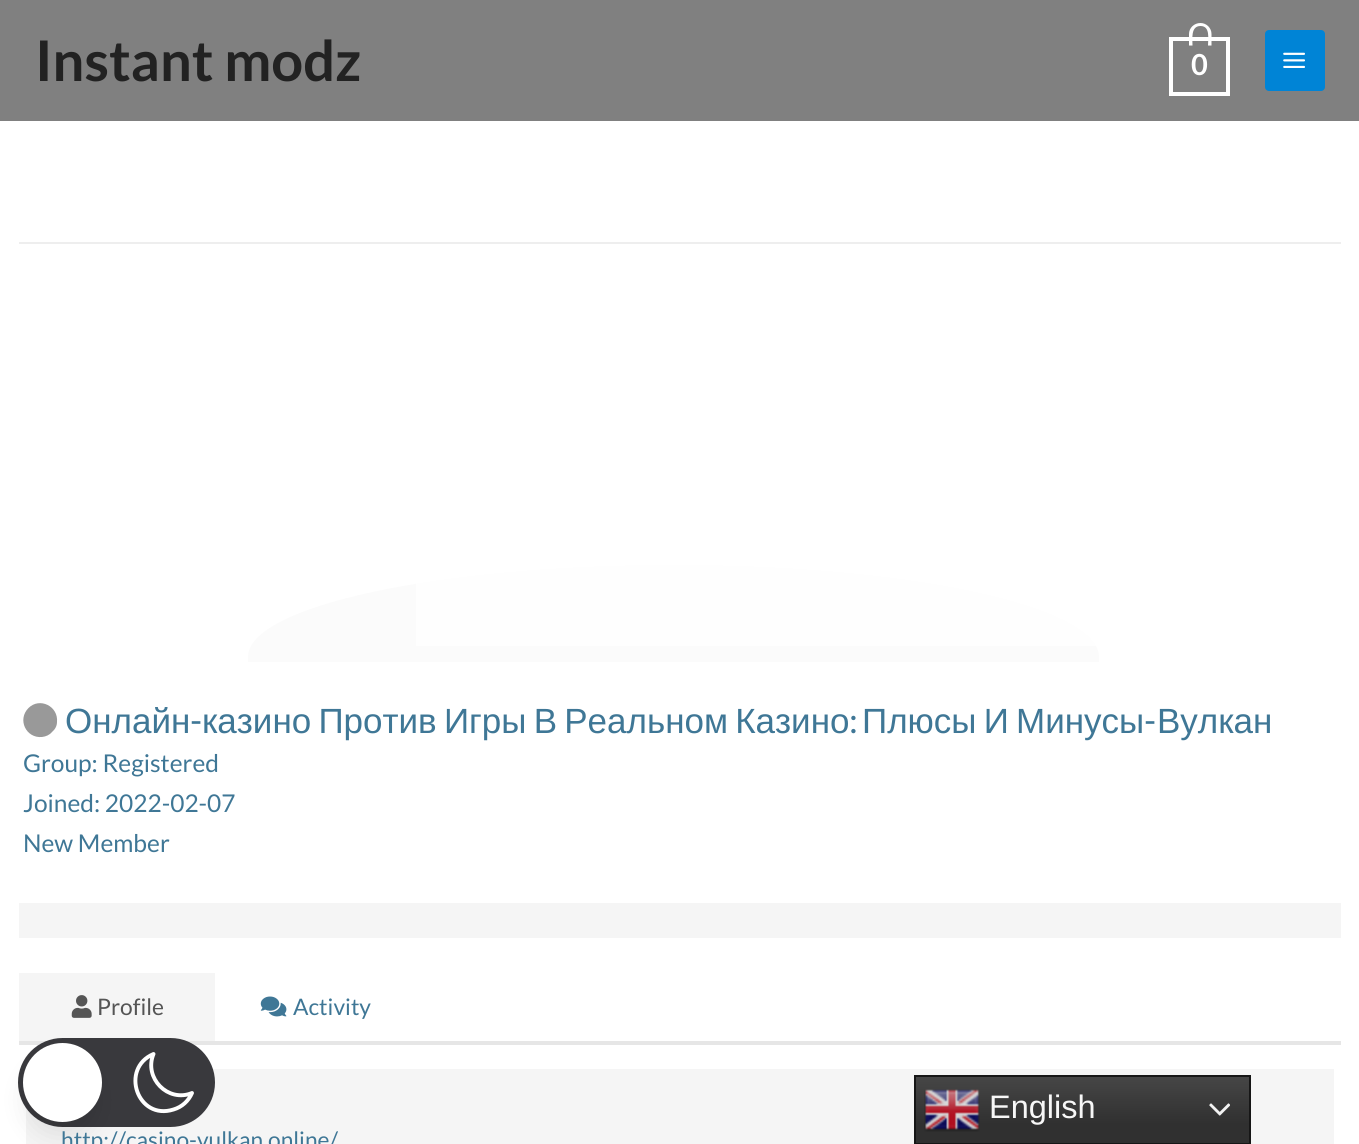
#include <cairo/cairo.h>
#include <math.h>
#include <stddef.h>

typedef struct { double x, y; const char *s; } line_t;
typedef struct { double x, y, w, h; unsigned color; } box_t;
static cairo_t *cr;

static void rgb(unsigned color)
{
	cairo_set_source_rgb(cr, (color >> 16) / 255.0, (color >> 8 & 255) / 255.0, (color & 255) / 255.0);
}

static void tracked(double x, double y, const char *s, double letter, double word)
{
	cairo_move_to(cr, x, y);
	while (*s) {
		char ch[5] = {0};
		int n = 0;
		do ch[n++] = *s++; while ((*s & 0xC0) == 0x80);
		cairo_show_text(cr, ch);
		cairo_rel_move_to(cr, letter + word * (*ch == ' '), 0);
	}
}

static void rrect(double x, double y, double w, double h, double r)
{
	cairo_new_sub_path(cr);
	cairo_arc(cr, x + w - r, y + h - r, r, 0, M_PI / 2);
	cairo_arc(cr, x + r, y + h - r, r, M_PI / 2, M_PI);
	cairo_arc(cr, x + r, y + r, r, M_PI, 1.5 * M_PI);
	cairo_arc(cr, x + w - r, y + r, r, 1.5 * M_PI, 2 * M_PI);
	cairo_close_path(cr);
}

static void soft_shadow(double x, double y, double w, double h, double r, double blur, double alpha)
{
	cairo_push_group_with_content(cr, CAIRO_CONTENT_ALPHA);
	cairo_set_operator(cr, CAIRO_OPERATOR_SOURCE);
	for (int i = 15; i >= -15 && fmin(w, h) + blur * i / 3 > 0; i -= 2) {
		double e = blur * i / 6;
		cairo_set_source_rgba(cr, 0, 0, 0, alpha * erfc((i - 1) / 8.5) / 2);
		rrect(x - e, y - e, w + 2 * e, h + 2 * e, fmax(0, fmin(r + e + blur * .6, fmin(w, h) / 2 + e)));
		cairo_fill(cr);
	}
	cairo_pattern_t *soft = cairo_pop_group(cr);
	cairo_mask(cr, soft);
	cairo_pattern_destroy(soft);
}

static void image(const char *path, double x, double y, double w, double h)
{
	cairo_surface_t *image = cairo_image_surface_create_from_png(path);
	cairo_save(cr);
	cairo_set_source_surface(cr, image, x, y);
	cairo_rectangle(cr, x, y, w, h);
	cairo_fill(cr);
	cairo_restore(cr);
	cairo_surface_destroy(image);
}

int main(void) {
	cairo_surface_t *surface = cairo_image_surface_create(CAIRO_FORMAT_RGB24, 1359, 1144);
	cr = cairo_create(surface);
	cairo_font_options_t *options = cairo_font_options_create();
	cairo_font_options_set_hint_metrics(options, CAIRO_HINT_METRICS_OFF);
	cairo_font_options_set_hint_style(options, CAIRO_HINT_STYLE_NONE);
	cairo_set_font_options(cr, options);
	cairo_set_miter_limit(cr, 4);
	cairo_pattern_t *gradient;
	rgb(0xffffff);
	cairo_paint(cr);
	rgb(0x808080);
	cairo_rectangle(cr, 0, 0, 1359, 121);
	cairo_fill(cr);
	cairo_rectangle(cr, 1171, 39, 57, 55);
	rgb(0xffffff);
	cairo_set_line_width(cr, 4);
	cairo_stroke(cr);
	cairo_set_fill_rule(cr, CAIRO_FILL_RULE_EVEN_ODD);
	cairo_new_path(cr);
	cairo_move_to(cr, 1200.5, 23);
	cairo_curve_to(cr, 1206.5, 23, 1211.5, 28, 1211.5, 34);
	cairo_line_to(cr, 1211.5, 45.5);
	cairo_line_to(cr, 1189, 45.5);
	cairo_line_to(cr, 1189, 34);
	cairo_curve_to(cr, 1189, 28, 1194, 23, 1200.5, 23);
	cairo_close_path(cr);
	cairo_move_to(cr, 1200.5, 26);
	cairo_curve_to(cr, 1210.5, 26, 1208, 39, 1208, 45.5);
	cairo_line_to(cr, 1192.5, 45.5);
	cairo_curve_to(cr, 1192.5, 39, 1190.5, 26, 1200.5, 26);
	cairo_close_path(cr);
	cairo_fill(cr);
	rgb(0x0084d6);
	rrect(1265, 30, 60, 61, 4);
	cairo_fill(cr);
	image("img/1.png", 1283, 52, 22, 16);
	cairo_save(cr);
	cairo_set_fill_rule(cr, CAIRO_FILL_RULE_WINDING);
	cairo_rectangle(cr, 19, 242, 1308, 420);
	cairo_clip(cr);
	rgb(0xfbfbfb);
	cairo_new_path(cr);
	cairo_move_to(cr, 674, 565);
	cairo_curve_to(cr, 909, 565, 1099, 606, 1099, 657);
	cairo_line_to(cr, 1099, 749);
	cairo_line_to(cr, 248, 749);
	cairo_line_to(cr, 248, 657);
	cairo_curve_to(cr, 248, 606, 439, 565, 674, 565);
	cairo_close_path(cr);
	cairo_fill(cr);
	cairo_restore(cr);
	rgb(0xeeeeee);
	cairo_rectangle(cr, 19, 242, 1322, 2);
	cairo_fill(cr);
	cairo_set_source_rgba(cr, 1, 1, 1, 0.7);
	cairo_set_fill_rule(cr, CAIRO_FILL_RULE_WINDING);
	cairo_new_path(cr);
	cairo_move_to(cr, 435, 401);
	cairo_line_to(cr, 1340, 401);
	cairo_line_to(cr, 1340, 646);
	cairo_line_to(cr, 416, 646);
	cairo_line_to(cr, 416, 406);
	cairo_curve_to(cr, 416, 403, 425, 401, 435, 401);
	cairo_close_path(cr);
	cairo_fill(cr);
	rgb(0x999999);
	cairo_new_path(cr);
	cairo_move_to(cr, 28.5, 708);
	cairo_curve_to(cr, 39.5, 697, 58.5, 706, 57, 722);
	cairo_curve_to(cr, 57, 726, 55, 729.5, 52, 732);
	cairo_curve_to(cr, 49.5, 735, 46, 736.5, 42, 737);
	cairo_curve_to(cr, 26, 738.5, 17, 719.5, 28.5, 708);
	cairo_close_path(cr);
	cairo_fill(cr);
	{
		static const box_t items[] = {
			{19, 903, 1322, 35, 0xf5f5f5},
			{19, 1041, 1322, 4, 0xe6e6e6},
			{19, 973, 196, 68, 0xf5f5f5},
		};
		for (size_t i = 0; i < sizeof items / sizeof *items; i++) {
			rgb(items[i].color);
			cairo_rectangle(cr, items[i].x, items[i].y, items[i].w, items[i].h);
			cairo_fill(cr);
		}
	}
	image("img/2.png", 71, 995, 21, 23);
	image("img/3.png", 260, 996, 27, 21);
	cairo_rectangle(cr, 26, 1069, 1308, 75);
	cairo_fill(cr);
	rgb(0x39393d);
	rrect(18, 1038, 197, 89, 44.5);
	cairo_fill(cr);
	cairo_new_path(cr);
	cairo_move_to(cr, 192, 1093);
	cairo_curve_to(cr, 168, 1103, 143.5, 1078, 153.5, 1054);
	cairo_curve_to(cr, 119.5, 1068.5, 137.5, 1121, 173.5, 1109.5);
	cairo_curve_to(cr, 182, 1107, 188.5, 1101, 192, 1093);
	cairo_close_path(cr);
	rgb(0xffffff);
	cairo_set_line_width(cr, 3.9);
	cairo_set_line_cap(cr, CAIRO_LINE_CAP_ROUND);
	cairo_set_line_join(cr, CAIRO_LINE_JOIN_ROUND);
	cairo_stroke(cr);
	rgb(0x000000);
	soft_shadow(28, 1066, 68, 68, 34, 13, 0.1);
	rgb(0xffffff);
	cairo_arc(cr, 62.5, 1082.5, 39.5, 0, 2 * M_PI);
	cairo_fill(cr);
	gradient = cairo_pattern_create_linear(1082, 1075, 1082, 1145);
	cairo_pattern_add_color_stop_rgba(gradient, 0, 0.278, 0.278, 0.278, 1);
	cairo_pattern_add_color_stop_rgba(gradient, 0.7, 0.188, 0.188, 0.188, 1);
	cairo_set_source(cr, gradient);
	cairo_pattern_destroy(gradient);
	cairo_rectangle(cr, 916, 1077, 333, 66);
	cairo_fill(cr);
	cairo_rectangle(cr, 915, 1076, 335, 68);
	rgb(0x161616);
	cairo_set_line_width(cr, 2);
	cairo_set_line_cap(cr, CAIRO_LINE_CAP_BUTT);
	cairo_set_line_join(cr, CAIRO_LINE_JOIN_MITER);
	cairo_stroke(cr);
	image("img/4.png", 924, 1089, 56, 43);
	image("img/5.png", 1209, 1103, 21, 13);
	cairo_select_font_face(cr, "Lato", CAIRO_FONT_SLANT_NORMAL, CAIRO_FONT_WEIGHT_BOLD);
	cairo_set_font_size(cr, 56);
	rgb(0x222222);
	cairo_move_to(cr, 35, 81);
	cairo_show_text(cr, "Instant modz");
	cairo_set_font_size(cr, 29);
	rgb(0xffffff);
	cairo_move_to(cr, 1191, 75);
	cairo_show_text(cr, "0");
	cairo_select_font_face(cr, "Liberation Sans", CAIRO_FONT_SLANT_NORMAL, CAIRO_FONT_WEIGHT_NORMAL);
	cairo_set_font_size(cr, 35);
	rgb(0x3f7796);
	cairo_move_to(cr, 65, 733);
	cairo_show_text(cr, "Онлайн");
	cairo_select_font_face(cr, "Lato", CAIRO_FONT_SLANT_NORMAL, CAIRO_FONT_WEIGHT_NORMAL);
	cairo_move_to(cr, 190, 733);
	cairo_show_text(cr, "-");
	cairo_select_font_face(cr, "Liberation Sans", CAIRO_FONT_SLANT_NORMAL, CAIRO_FONT_WEIGHT_NORMAL);
	tracked(202, 733, "казино Против Игры В Реальном Казино", 0, -2.5);
	cairo_select_font_face(cr, "Lato", CAIRO_FONT_SLANT_NORMAL, CAIRO_FONT_WEIGHT_NORMAL);
	cairo_move_to(cr, 849, 733);
	cairo_show_text(cr, ":");
	cairo_select_font_face(cr, "Liberation Sans", CAIRO_FONT_SLANT_NORMAL, CAIRO_FONT_WEIGHT_NORMAL);
	tracked(862, 733, "Плюсы И Минусы", 0, -2.5);
	cairo_select_font_face(cr, "Lato", CAIRO_FONT_SLANT_NORMAL, CAIRO_FONT_WEIGHT_NORMAL);
	cairo_move_to(cr, 1144, 733);
	cairo_show_text(cr, "-");
	cairo_select_font_face(cr, "Liberation Sans", CAIRO_FONT_SLANT_NORMAL, CAIRO_FONT_WEIGHT_NORMAL);
	cairo_move_to(cr, 1157, 733);
	cairo_show_text(cr, "Вулкан");
	cairo_select_font_face(cr, "Lato", CAIRO_FONT_SLANT_NORMAL, CAIRO_FONT_WEIGHT_NORMAL);
	cairo_set_font_size(cr, 24.5);
	{
		static const line_t items[] = {
			{23, 772, "Group: Registered"},
			{23, 812, "Joined: 2022-02-07"},
			{23, 852, "New Member"},
		};
		for (size_t i = 0; i < sizeof items / sizeof *items; i++) {
			cairo_move_to(cr, items[i].x, items[i].y);
			cairo_show_text(cr, items[i].s);
		}
	}
	cairo_set_font_size(cr, 22.75);
	rgb(0x555555);
	cairo_move_to(cr, 97, 1015);
	cairo_show_text(cr, "Profile");
	rgb(0x3f7796);
	cairo_move_to(cr, 293, 1015);
	cairo_show_text(cr, "Activity");
	cairo_move_to(cr, 61, 1148);
	cairo_show_text(cr, "http://casino-vulkan.online/");
	cairo_select_font_face(cr, "Liberation Sans", CAIRO_FONT_SLANT_NORMAL, CAIRO_FONT_WEIGHT_NORMAL);
	cairo_set_font_size(cr, 32.5);
	rgb(0xf7f7f7);
	cairo_move_to(cr, 989, 1118);
	cairo_show_text(cr, "English");
	cairo_surface_write_to_png(surface, "page.png");
	cairo_font_options_destroy(options);
	cairo_destroy(cr);
	cairo_surface_destroy(surface);
	return 0;
}
